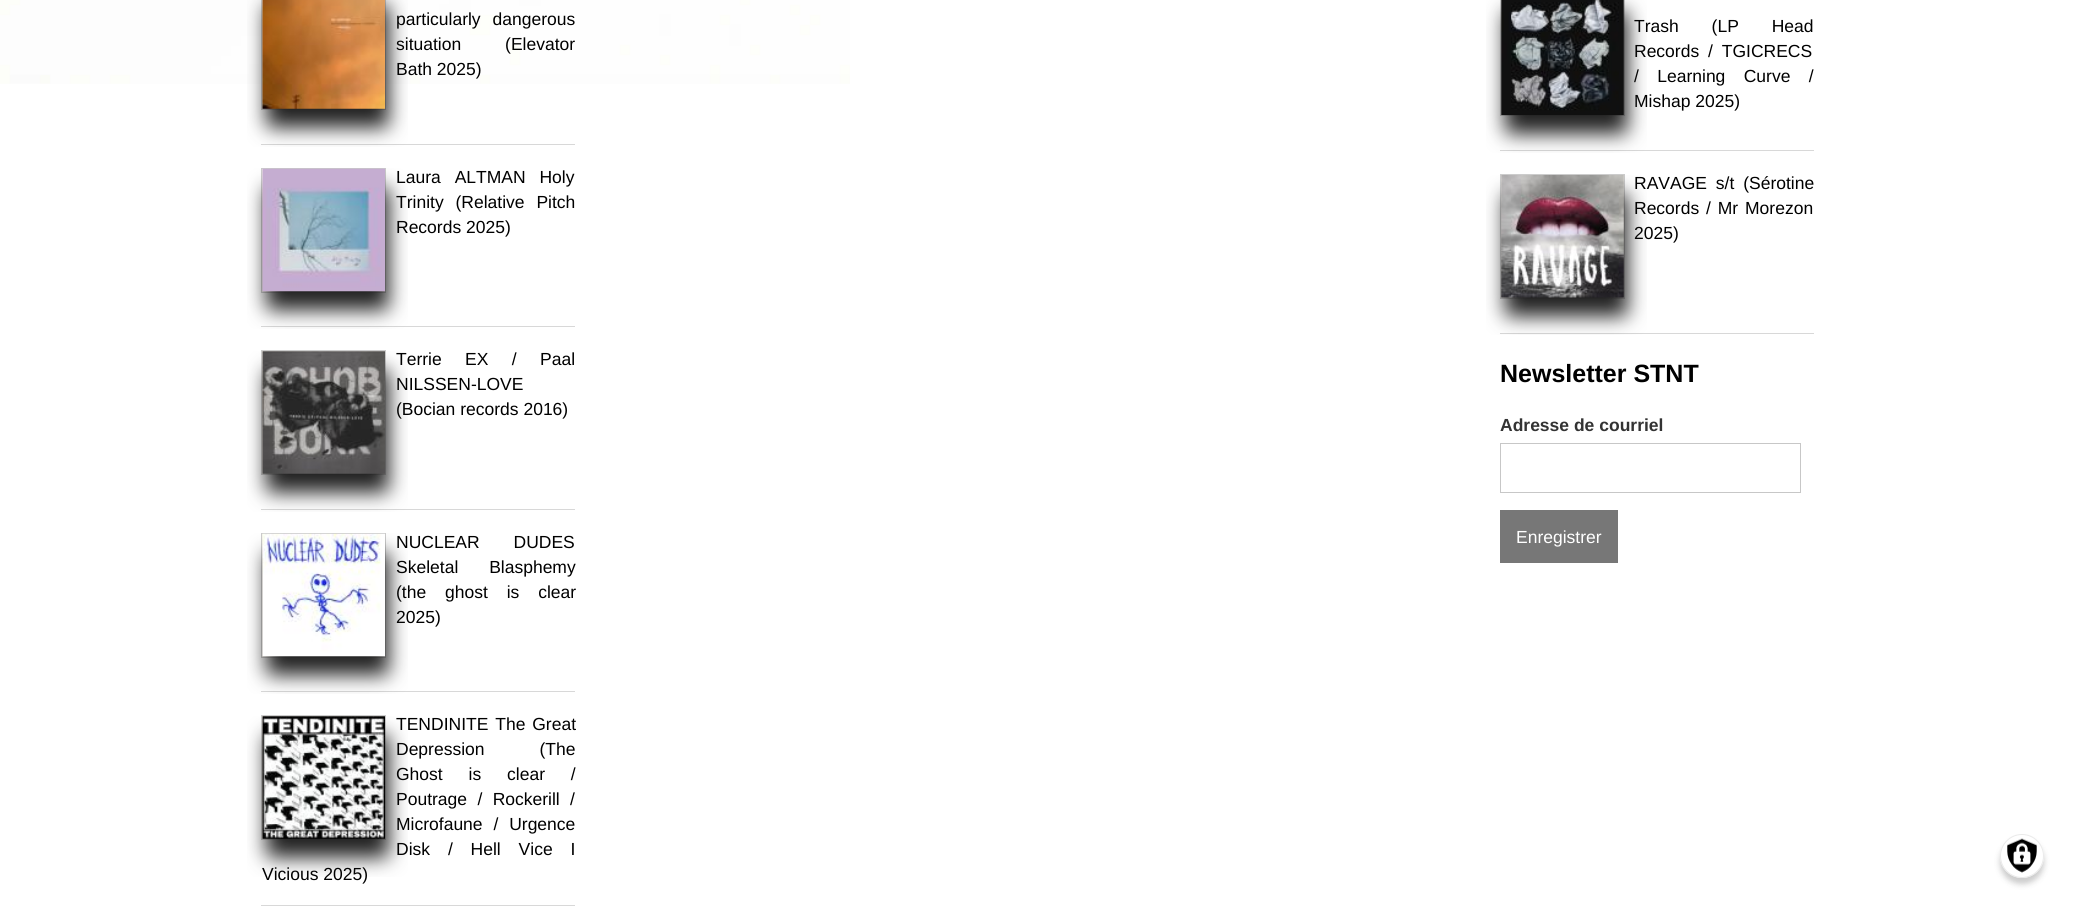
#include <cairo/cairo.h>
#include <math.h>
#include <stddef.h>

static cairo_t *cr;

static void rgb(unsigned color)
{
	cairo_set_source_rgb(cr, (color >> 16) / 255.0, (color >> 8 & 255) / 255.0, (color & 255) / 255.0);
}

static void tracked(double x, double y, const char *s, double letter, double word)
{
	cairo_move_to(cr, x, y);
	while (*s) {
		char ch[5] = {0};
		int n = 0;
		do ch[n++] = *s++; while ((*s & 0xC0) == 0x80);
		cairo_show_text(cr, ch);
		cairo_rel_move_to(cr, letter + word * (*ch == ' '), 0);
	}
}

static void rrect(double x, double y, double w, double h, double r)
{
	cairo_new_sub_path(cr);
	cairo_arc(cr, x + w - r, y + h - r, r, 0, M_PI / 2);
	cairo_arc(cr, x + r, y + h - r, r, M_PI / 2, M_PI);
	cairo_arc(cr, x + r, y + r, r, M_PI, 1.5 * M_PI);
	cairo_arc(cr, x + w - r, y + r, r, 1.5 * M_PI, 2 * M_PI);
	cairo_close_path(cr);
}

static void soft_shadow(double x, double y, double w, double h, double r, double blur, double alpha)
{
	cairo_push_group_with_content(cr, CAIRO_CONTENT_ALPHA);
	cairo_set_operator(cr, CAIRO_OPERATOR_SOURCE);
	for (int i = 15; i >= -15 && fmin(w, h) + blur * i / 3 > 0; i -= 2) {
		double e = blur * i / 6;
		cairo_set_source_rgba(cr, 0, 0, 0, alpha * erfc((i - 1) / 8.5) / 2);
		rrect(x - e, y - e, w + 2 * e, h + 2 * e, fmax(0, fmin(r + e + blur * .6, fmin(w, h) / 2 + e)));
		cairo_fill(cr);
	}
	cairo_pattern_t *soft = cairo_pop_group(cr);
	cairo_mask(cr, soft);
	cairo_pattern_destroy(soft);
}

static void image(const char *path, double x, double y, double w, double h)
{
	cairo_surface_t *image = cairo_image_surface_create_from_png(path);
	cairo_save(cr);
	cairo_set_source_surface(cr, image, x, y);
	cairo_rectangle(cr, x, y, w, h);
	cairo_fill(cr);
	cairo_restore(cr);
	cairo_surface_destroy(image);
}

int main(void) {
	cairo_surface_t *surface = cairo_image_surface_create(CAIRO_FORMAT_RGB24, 2074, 908);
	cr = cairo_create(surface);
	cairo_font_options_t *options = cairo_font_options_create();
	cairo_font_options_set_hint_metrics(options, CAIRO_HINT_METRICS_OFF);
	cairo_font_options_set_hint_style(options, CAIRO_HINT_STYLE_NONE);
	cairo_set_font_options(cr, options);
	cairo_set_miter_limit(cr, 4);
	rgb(0xffffff);
	cairo_paint(cr);
	image("img/1.png", 0, 0, 850, 84);
	rgb(0xd8d8d8);
	cairo_rectangle(cr, 261, 144, 314, 1);
	cairo_fill(cr);
	rgb(0xf2ede7);
	cairo_rectangle(cr, 261.5, -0.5, 124, 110);
	cairo_fill_preserve(cr);
	rgb(0xcccccc);
	cairo_set_line_width(cr, 1);
	cairo_stroke(cr);
	rgb(0xd8d8d8);
	cairo_rectangle(cr, 261, 326, 314, 1);
	cairo_fill(cr);
	rgb(0xf2ede7);
	cairo_rectangle(cr, 261.5, 168.5, 124, 124);
	cairo_fill_preserve(cr);
	rgb(0xcccccc);
	cairo_stroke(cr);
	rgb(0xd8d8d8);
	cairo_rectangle(cr, 261, 509, 314, 1);
	cairo_fill(cr);
	rgb(0xf2ede7);
	cairo_rectangle(cr, 261.5, 350.5, 124, 124);
	cairo_fill_preserve(cr);
	rgb(0xcccccc);
	cairo_stroke(cr);
	rgb(0xd8d8d8);
	cairo_rectangle(cr, 261, 691, 314, 1);
	cairo_fill(cr);
	rgb(0xf2ede7);
	cairo_rectangle(cr, 261.5, 533.5, 124, 124);
	cairo_fill_preserve(cr);
	rgb(0xcccccc);
	cairo_stroke(cr);
	rgb(0xd8d8d8);
	cairo_rectangle(cr, 261, 905, 314, 1);
	cairo_fill(cr);
	rgb(0xf2ede7);
	cairo_rectangle(cr, 261.5, 715.5, 124, 124);
	cairo_fill_preserve(cr);
	rgb(0xcccccc);
	cairo_stroke(cr);
	rgb(0xd8d8d8);
	cairo_rectangle(cr, 1500, 150, 314, 1);
	cairo_fill(cr);
	cairo_rectangle(cr, 1500.5, -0.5, 124, 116);
	rgb(0xcccccc);
	cairo_stroke(cr);
	rgb(0xd8d8d8);
	cairo_rectangle(cr, 1500, 333, 314, 1);
	cairo_fill(cr);
	rgb(0xf2ede7);
	cairo_rectangle(cr, 1500.5, 174.5, 124, 124);
	cairo_fill_preserve(cr);
	rgb(0xcccccc);
	cairo_stroke(cr);
	cairo_rectangle(cr, 1500.5, 443.5, 300, 49);
	rgb(0xc7c7c7);
	cairo_stroke(cr);
	rgb(0x777777);
	cairo_rectangle(cr, 1500, 510, 118, 53);
	cairo_fill(cr);
	rgb(0x000000);
	soft_shadow(2000, 840, 44, 44, 22, 3, 0.2);
	rgb(0xffffff);
	cairo_arc(cr, 2022, 856, 22, 0, 2 * M_PI);
	cairo_fill(cr);
	image("img/9.png", 2007, 838, 30, 35);
	cairo_arc(cr, 2022, 856, 21.5, 0, 2 * M_PI);
	rgb(0xeaeaea);
	cairo_stroke(cr);
	cairo_select_font_face(cr, "Liberation Sans", CAIRO_FONT_SLANT_NORMAL, CAIRO_FONT_WEIGHT_NORMAL);
	cairo_set_font_size(cr, 17.5);
	rgb(0x000000);
	tracked(396, 25, "particularly dangerous", 0, 7);
	tracked(396, 50, "situation (Elevator", 0, 39);
	cairo_move_to(cr, 396, 75);
	cairo_show_text(cr, "Bath 2025)");
	image("img/2.png", 247, 0, 161, 147);
	tracked(396, 183, "Laura ALTMAN Holy", 0, 9);
	tracked(396, 208, "Trinity (Relative Pitch", 0, 7);
	cairo_move_to(cr, 396, 233);
	cairo_show_text(cr, "Records 2025)");
	image("img/3.png", 247, 168, 161, 161);
	tracked(396, 365, "Terrie EX / Paal", 0, 18.5);
	cairo_move_to(cr, 396, 390);
	cairo_show_text(cr, "NILSSEN-LOVE");
	cairo_move_to(cr, 396, 415);
	cairo_show_text(cr, "(Bocian records 2016)");
	image("img/4.png", 247, 351, 161, 161);
	tracked(396, 548, "NUCLEAR DUDES", 0, 29);
	tracked(396, 573, "Skeletal Blasphemy", 0, 26);
	tracked(396, 598, "(the ghost is clear", 0, 14);
	cairo_move_to(cr, 396, 623);
	cairo_show_text(cr, "2025)");
	image("img/5.png", 247, 533, 161, 161);
	tracked(396, 730, "TENDINITE The Great", 0, 2);
	tracked(396, 755, "Depression (The", 0, 50);
	tracked(396, 780, "Ghost is clear /", 0, 21);
	tracked(396, 805, "Poutrage / Rockerill /", 0, 5.5);
	tracked(396, 830, "Microfaune / Urgence", 0, 6);
	tracked(396, 855, "Disk / Hell Vice I", 0, 13);
	cairo_move_to(cr, 262, 880);
	cairo_show_text(cr, "Vicious 2025)");
	image("img/6.png", 247, 716, 161, 161);
	tracked(1634, 32, "Trash (LP Head", 0, 28);
	tracked(1634, 57, "Records / TGICRECS", 0, 4);
	tracked(1634, 82, "/ Learning Curve /", 0, 13.5);
	cairo_move_to(cr, 1634, 107);
	cairo_show_text(cr, "Mishap 2025)");
	image("img/7.png", 1486, 0, 161, 153);
	tracked(1634, 189, "RAVAGE s/t (Sérotine", 0, 4);
	tracked(1634, 214, "Records / Mr Morezon", 0, 2);
	cairo_move_to(cr, 1634, 239);
	cairo_show_text(cr, "2025)");
	image("img/8.png", 1486, 175, 161, 160);
	cairo_select_font_face(cr, "Liberation Sans", CAIRO_FONT_SLANT_NORMAL, CAIRO_FONT_WEIGHT_BOLD);
	cairo_set_font_size(cr, 25);
	cairo_move_to(cr, 1500, 382);
	cairo_show_text(cr, "Newsletter STNT");
	cairo_set_font_size(cr, 17.5);
	rgb(0x333333);
	cairo_move_to(cr, 1500, 431);
	cairo_show_text(cr, "Adresse de courriel");
	cairo_select_font_face(cr, "Liberation Sans", CAIRO_FONT_SLANT_NORMAL, CAIRO_FONT_WEIGHT_NORMAL);
	rgb(0xffffff);
	cairo_move_to(cr, 1516, 543);
	cairo_show_text(cr, "Enregistrer");
	cairo_surface_write_to_png(surface, "page.png");
	cairo_font_options_destroy(options);
	cairo_destroy(cr);
	cairo_surface_destroy(surface);
	return 0;
}
